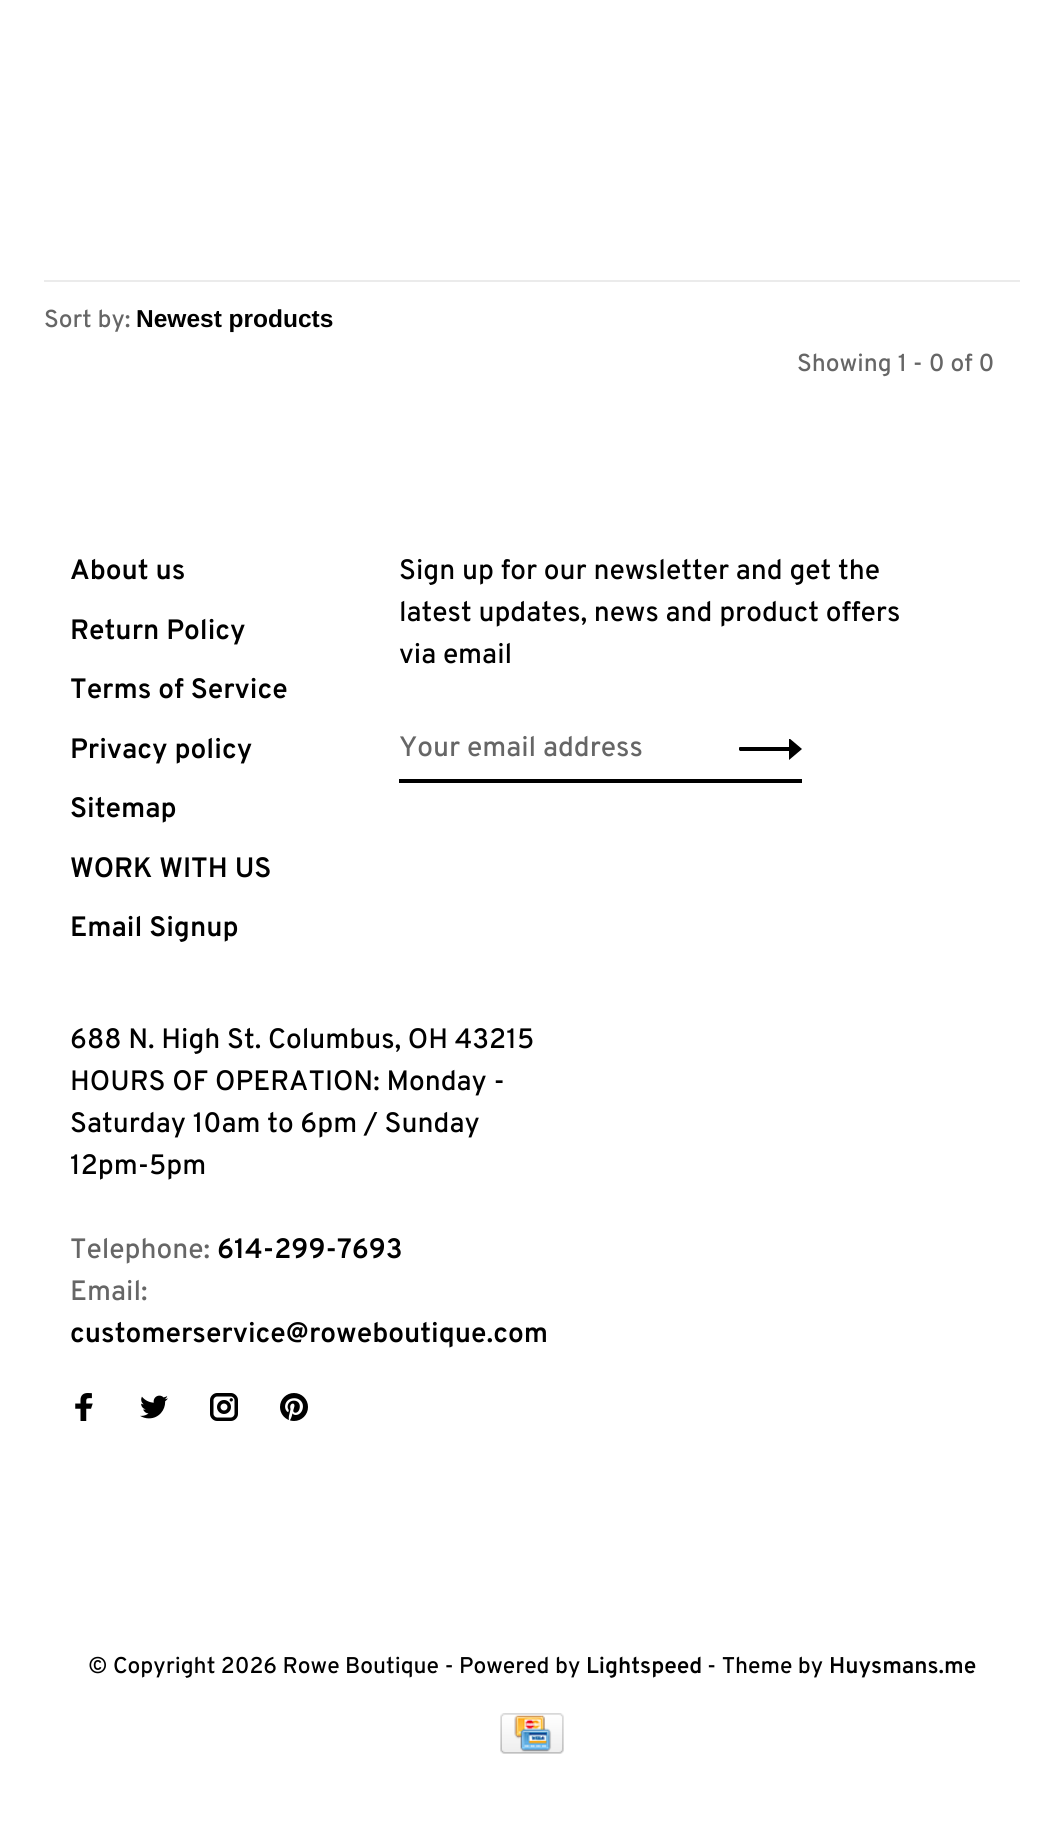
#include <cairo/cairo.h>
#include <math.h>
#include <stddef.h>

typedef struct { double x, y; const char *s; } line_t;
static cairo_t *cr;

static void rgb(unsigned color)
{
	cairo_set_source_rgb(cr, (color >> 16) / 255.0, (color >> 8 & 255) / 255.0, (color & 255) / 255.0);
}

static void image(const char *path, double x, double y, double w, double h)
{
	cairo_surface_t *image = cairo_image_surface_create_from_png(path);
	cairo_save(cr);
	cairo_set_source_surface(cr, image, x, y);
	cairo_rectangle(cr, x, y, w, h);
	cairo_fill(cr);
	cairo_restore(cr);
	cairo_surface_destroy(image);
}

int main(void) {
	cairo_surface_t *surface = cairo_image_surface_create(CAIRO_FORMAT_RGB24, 1063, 1821);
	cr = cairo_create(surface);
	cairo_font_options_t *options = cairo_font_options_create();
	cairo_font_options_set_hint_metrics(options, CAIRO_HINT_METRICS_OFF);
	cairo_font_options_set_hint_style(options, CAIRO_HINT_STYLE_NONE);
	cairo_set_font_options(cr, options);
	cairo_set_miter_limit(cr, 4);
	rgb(0xffffff);
	cairo_paint(cr);
	rgb(0xebebeb);
	cairo_rectangle(cr, 44, 280, 976, 2);
	cairo_fill(cr);
	rgb(0x000000);
	cairo_rectangle(cr, 399, 779, 403, 4);
	cairo_fill(cr);
	cairo_save(cr);
	cairo_rectangle(cr, 739, 739, 63, 21);
	cairo_clip(cr);
	cairo_new_path(cr);
	cairo_move_to(cr, 789, 747);
	cairo_line_to(cr, 740, 747);
	cairo_curve_to(cr, 739, 747, 738, 749, 739, 750);
	cairo_line_to(cr, 740, 751);
	cairo_line_to(cr, 789, 751);
	cairo_line_to(cr, 789, 760);
	cairo_line_to(cr, 802, 749);
	cairo_line_to(cr, 789, 738);
	cairo_close_path(cr);
	cairo_fill(cr);
	cairo_restore(cr);
	image("img/1.png", 75, 1393, 18, 28);
	image("img/2.png", 140, 1395, 28, 24);
	image("img/3.png", 210, 1393, 28, 28);
	image("img/4.png", 280, 1393, 28, 28);
	image("img/5.png", 500, 1713, 64, 41);
	cairo_select_font_face(cr, "Overpass Medium", CAIRO_FONT_SLANT_NORMAL, CAIRO_FONT_WEIGHT_NORMAL);
	cairo_set_font_size(cr, 24.5);
	rgb(0x666666);
	cairo_move_to(cr, 44, 327);
	cairo_show_text(cr, "Sort by:");
	cairo_select_font_face(cr, "Liberation Sans", CAIRO_FONT_SLANT_NORMAL, CAIRO_FONT_WEIGHT_BOLD);
	rgb(0x000000);
	cairo_move_to(cr, 136, 327);
	cairo_show_text(cr, "Newest products");
	cairo_select_font_face(cr, "Overpass Medium", CAIRO_FONT_SLANT_NORMAL, CAIRO_FONT_WEIGHT_NORMAL);
	rgb(0x666666);
	cairo_move_to(cr, 797, 371);
	cairo_show_text(cr, "Showing 1 - 0 of 0");
	cairo_select_font_face(cr, "Overpass SemiBold", CAIRO_FONT_SLANT_NORMAL, CAIRO_FONT_WEIGHT_NORMAL);
	cairo_set_font_size(cr, 28);
	rgb(0x000000);
	{
		static const line_t items[] = {
			{70, 579, "About us"},
			{70, 639, "Return Policy"},
			{70, 698, "Terms of Service"},
			{70, 758, "Privacy policy"},
			{70, 817, "Sitemap"},
			{70, 877, "WORK WITH US"},
			{70, 936, "Email Signup"},
		};
		for (size_t i = 0; i < sizeof items / sizeof *items; i++) {
			cairo_move_to(cr, items[i].x, items[i].y);
			cairo_show_text(cr, items[i].s);
		}
	}
	cairo_select_font_face(cr, "Overpass Medium", CAIRO_FONT_SLANT_NORMAL, CAIRO_FONT_WEIGHT_NORMAL);
	{
		static const line_t items[] = {
			{399, 579, "Sign up for our newsletter and get the"},
			{399, 621, "latest updates, news and product offers"},
			{399, 663, "via email"},
		};
		for (size_t i = 0; i < sizeof items / sizeof *items; i++) {
			cairo_move_to(cr, items[i].x, items[i].y);
			cairo_show_text(cr, items[i].s);
		}
	}
	rgb(0x666666);
	cairo_move_to(cr, 399, 756);
	cairo_show_text(cr, "Your email address");
	rgb(0x000000);
	{
		static const line_t items[] = {
			{70, 1048, "688 N. High St. Columbus, OH 43215"},
			{70, 1090, "HOURS OF OPERATION: Monday -"},
			{70, 1132, "Saturday 10am to 6pm / Sunday"},
			{70, 1174, "12pm-5pm"},
		};
		for (size_t i = 0; i < sizeof items / sizeof *items; i++) {
			cairo_move_to(cr, items[i].x, items[i].y);
			cairo_show_text(cr, items[i].s);
		}
	}
	rgb(0x666666);
	cairo_move_to(cr, 70, 1258);
	cairo_show_text(cr, "Telephone:");
	cairo_select_font_face(cr, "Overpass SemiBold", CAIRO_FONT_SLANT_NORMAL, CAIRO_FONT_WEIGHT_NORMAL);
	rgb(0x000000);
	cairo_move_to(cr, 217, 1258);
	cairo_show_text(cr, "614-299-7693");
	cairo_select_font_face(cr, "Overpass Medium", CAIRO_FONT_SLANT_NORMAL, CAIRO_FONT_WEIGHT_NORMAL);
	rgb(0x666666);
	cairo_move_to(cr, 70, 1300);
	cairo_show_text(cr, "Email:");
	cairo_select_font_face(cr, "Overpass SemiBold", CAIRO_FONT_SLANT_NORMAL, CAIRO_FONT_WEIGHT_NORMAL);
	rgb(0x000000);
	cairo_move_to(cr, 70, 1342);
	cairo_show_text(cr, "customerservice@roweboutique.com");
	cairo_select_font_face(cr, "Overpass Medium", CAIRO_FONT_SLANT_NORMAL, CAIRO_FONT_WEIGHT_NORMAL);
	cairo_set_font_size(cr, 22.75);
	cairo_move_to(cr, 88, 1673);
	cairo_show_text(cr, "© Copyright 2026 Rowe Boutique - Powered by");
	cairo_select_font_face(cr, "Overpass SemiBold", CAIRO_FONT_SLANT_NORMAL, CAIRO_FONT_WEIGHT_NORMAL);
	cairo_move_to(cr, 586, 1673);
	cairo_show_text(cr, "Lightspeed");
	cairo_select_font_face(cr, "Overpass Medium", CAIRO_FONT_SLANT_NORMAL, CAIRO_FONT_WEIGHT_NORMAL);
	cairo_move_to(cr, 707, 1673);
	cairo_show_text(cr, "- Theme by");
	cairo_select_font_face(cr, "Overpass SemiBold", CAIRO_FONT_SLANT_NORMAL, CAIRO_FONT_WEIGHT_NORMAL);
	cairo_move_to(cr, 829, 1673);
	cairo_show_text(cr, "Huysmans.me");
	cairo_surface_write_to_png(surface, "page.png");
	cairo_font_options_destroy(options);
	cairo_destroy(cr);
	cairo_surface_destroy(surface);
	return 0;
}
